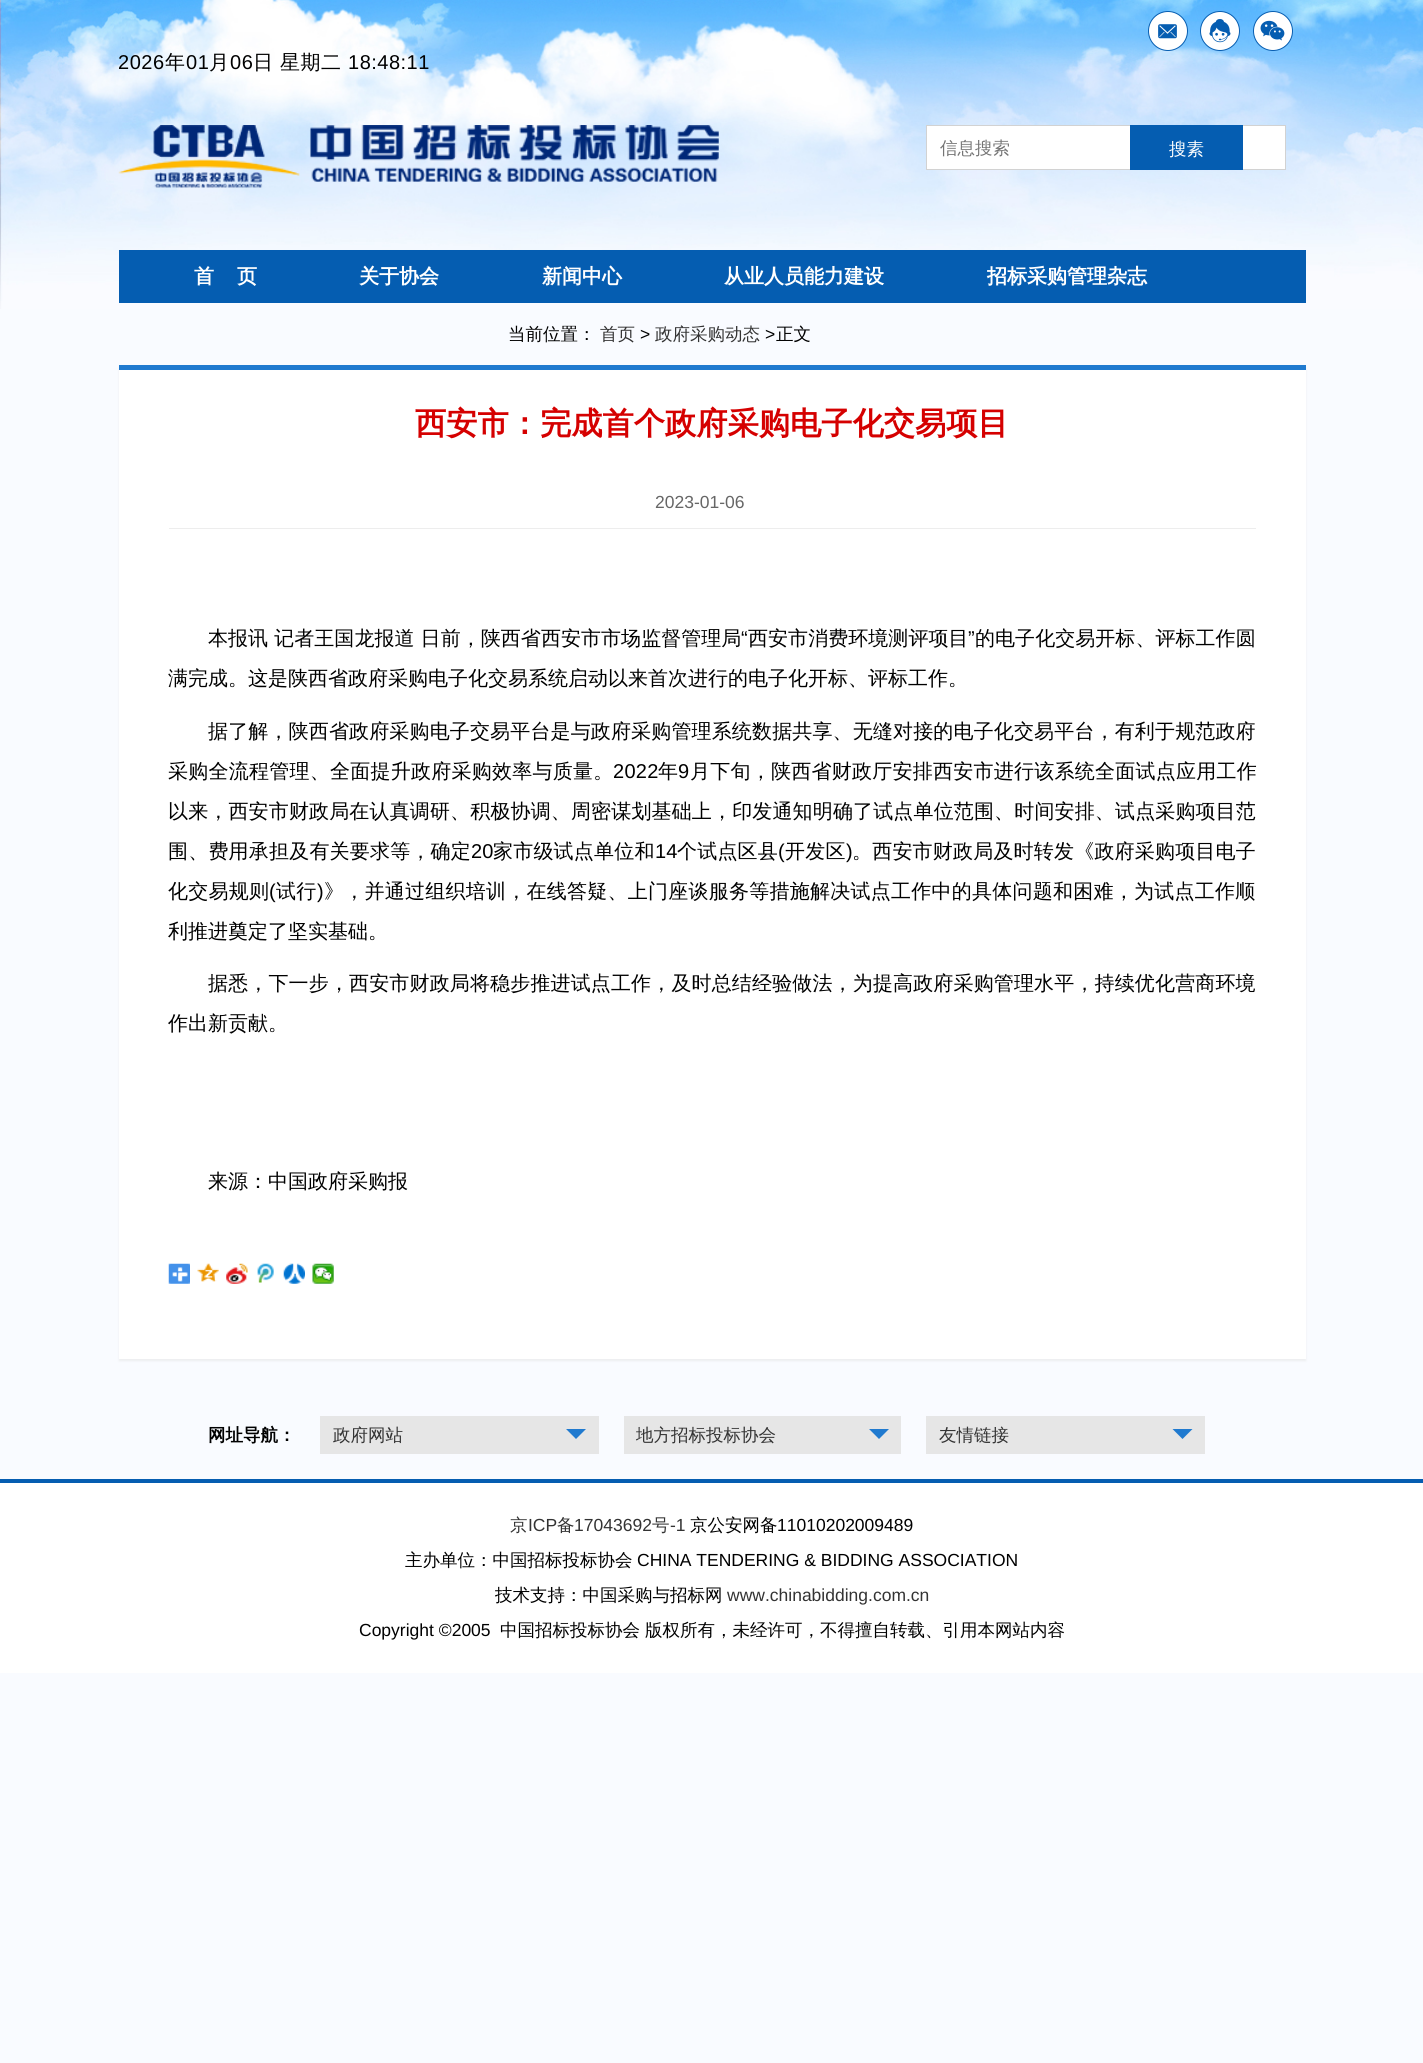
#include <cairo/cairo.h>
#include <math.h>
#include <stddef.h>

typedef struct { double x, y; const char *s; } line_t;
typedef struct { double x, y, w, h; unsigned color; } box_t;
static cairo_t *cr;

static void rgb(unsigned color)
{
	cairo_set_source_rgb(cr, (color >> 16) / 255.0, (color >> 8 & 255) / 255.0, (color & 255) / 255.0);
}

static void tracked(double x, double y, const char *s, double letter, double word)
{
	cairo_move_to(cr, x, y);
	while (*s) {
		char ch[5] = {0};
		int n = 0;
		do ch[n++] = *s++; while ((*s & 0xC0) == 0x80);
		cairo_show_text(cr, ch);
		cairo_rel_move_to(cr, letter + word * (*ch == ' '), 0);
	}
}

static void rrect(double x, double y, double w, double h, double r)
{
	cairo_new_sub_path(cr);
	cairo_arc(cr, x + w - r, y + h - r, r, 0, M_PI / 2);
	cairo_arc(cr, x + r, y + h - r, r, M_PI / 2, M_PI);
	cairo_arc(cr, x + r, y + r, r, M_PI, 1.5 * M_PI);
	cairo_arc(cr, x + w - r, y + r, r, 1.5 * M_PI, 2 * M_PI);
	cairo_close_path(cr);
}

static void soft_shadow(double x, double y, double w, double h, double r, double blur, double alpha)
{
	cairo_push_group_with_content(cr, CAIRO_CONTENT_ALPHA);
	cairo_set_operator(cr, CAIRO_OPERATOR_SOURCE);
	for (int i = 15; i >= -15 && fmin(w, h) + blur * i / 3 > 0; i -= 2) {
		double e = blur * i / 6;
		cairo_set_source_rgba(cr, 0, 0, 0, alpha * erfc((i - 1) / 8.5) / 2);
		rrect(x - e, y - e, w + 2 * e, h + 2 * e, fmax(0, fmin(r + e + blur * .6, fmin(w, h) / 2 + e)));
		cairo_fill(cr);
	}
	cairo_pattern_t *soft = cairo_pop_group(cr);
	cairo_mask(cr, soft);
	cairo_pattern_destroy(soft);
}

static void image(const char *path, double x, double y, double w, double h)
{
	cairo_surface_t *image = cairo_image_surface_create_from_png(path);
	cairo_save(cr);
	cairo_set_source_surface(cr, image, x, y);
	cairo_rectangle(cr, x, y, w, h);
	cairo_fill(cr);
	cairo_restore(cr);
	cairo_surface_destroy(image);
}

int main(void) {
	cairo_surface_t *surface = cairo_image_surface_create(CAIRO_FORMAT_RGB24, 1423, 2063);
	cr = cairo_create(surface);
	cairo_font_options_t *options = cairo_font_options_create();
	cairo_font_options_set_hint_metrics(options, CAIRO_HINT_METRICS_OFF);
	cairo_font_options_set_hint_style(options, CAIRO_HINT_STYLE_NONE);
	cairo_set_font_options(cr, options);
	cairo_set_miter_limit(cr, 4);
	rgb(0xf9fbff);
	cairo_paint(cr);
	image("img/1.png", 0, 0, 1423, 309);
	rgb(0xffffff);
	cairo_arc(cr, 1168, 31, 19.5, 0, 2 * M_PI);
	cairo_fill_preserve(cr);
	rgb(0x055db1);
	cairo_set_line_width(cr, 1);
	cairo_stroke(cr);
	image("img/2.png", 1158, 24, 19, 15);
	rgb(0xffffff);
	cairo_arc(cr, 1220, 31, 19.5, 0, 2 * M_PI);
	cairo_fill_preserve(cr);
	rgb(0x055db1);
	cairo_stroke(cr);
	image("img/3.png", 1209, 19, 22, 24);
	rgb(0xffffff);
	cairo_arc(cr, 1273, 31, 19.5, 0, 2 * M_PI);
	cairo_fill_preserve(cr);
	rgb(0x055db1);
	cairo_stroke(cr);
	image("img/4.png", 1260, 20, 25, 21);
	image("img/5.png", 118, 125, 601, 63);
	rgb(0xffffff);
	cairo_rectangle(cr, 926.5, 125.5, 359, 44);
	cairo_fill_preserve(cr);
	rgb(0xd2d2d2);
	cairo_stroke(cr);
	rgb(0x055db1);
	cairo_rectangle(cr, 1130, 125, 113, 45);
	cairo_fill(cr);
	cairo_rectangle(cr, 119, 250, 1187, 53);
	cairo_fill(cr);
	rgb(0xedeef0);
	soft_shadow(119, 368, 1187, 993, 0, 1, 1);
	{
		static const box_t items[] = {
			{119, 370, 1187, 989, 0xffffff},
			{119, 365, 1187, 5, 0x207acf},
			{169, 528, 1087, 1, 0xededed},
		};
		for (size_t i = 0; i < sizeof items / sizeof *items; i++) {
			rgb(items[i].color);
			cairo_rectangle(cr, items[i].x, items[i].y, items[i].w, items[i].h);
			cairo_fill(cr);
		}
	}
	image("img/6.png", 168, 1263, 22, 21);
	image("img/7.png", 197, 1263, 22, 19);
	image("img/8.png", 226, 1263, 22, 21);
	image("img/9.png", 257, 1263, 17, 20);
	image("img/10.png", 283, 1263, 22, 21);
	image("img/11.png", 312, 1263, 22, 21);
	rgb(0xe6e6e6);
	cairo_rectangle(cr, 320, 1416, 279, 38);
	cairo_fill(cr);
	rgb(0x207acf);
	cairo_new_path(cr);
	cairo_move_to(cr, 566, 1429);
	cairo_line_to(cr, 586, 1429);
	cairo_line_to(cr, 576, 1439);
	cairo_close_path(cr);
	cairo_fill(cr);
	rgb(0xe6e6e6);
	cairo_rectangle(cr, 624, 1416, 277, 38);
	cairo_fill(cr);
	rgb(0x207acf);
	cairo_new_path(cr);
	cairo_move_to(cr, 869, 1429);
	cairo_line_to(cr, 889, 1429);
	cairo_line_to(cr, 879, 1439);
	cairo_close_path(cr);
	cairo_fill(cr);
	rgb(0xe6e6e6);
	cairo_rectangle(cr, 926, 1416, 279, 38);
	cairo_fill(cr);
	rgb(0x207acf);
	cairo_new_path(cr);
	cairo_move_to(cr, 1172.5, 1429);
	cairo_line_to(cr, 1192.5, 1429);
	cairo_line_to(cr, 1182.5, 1439);
	cairo_close_path(cr);
	cairo_fill(cr);
	rgb(0xffffff);
	cairo_rectangle(cr, 0, 1483, 1423, 190);
	cairo_fill(cr);
	rgb(0x055db1);
	cairo_rectangle(cr, 0, 1479, 1423, 4);
	cairo_fill(cr);
	cairo_select_font_face(cr, "Liberation Sans", CAIRO_FONT_SLANT_NORMAL, CAIRO_FONT_WEIGHT_NORMAL);
	cairo_set_font_size(cr, 20);
	rgb(0x000000);
	tracked(118, 69, "2026", 0.5, 0);
	cairo_select_font_face(cr, "WenQuanYi Zen Hei Medium", CAIRO_FONT_SLANT_NORMAL, CAIRO_FONT_WEIGHT_NORMAL);
	tracked(165, 69, "年", 0.5, 0);
	cairo_select_font_face(cr, "Liberation Sans", CAIRO_FONT_SLANT_NORMAL, CAIRO_FONT_WEIGHT_NORMAL);
	tracked(186, 69, "01", 0.5, 0);
	cairo_select_font_face(cr, "WenQuanYi Zen Hei Medium", CAIRO_FONT_SLANT_NORMAL, CAIRO_FONT_WEIGHT_NORMAL);
	tracked(209, 69, "月", 0.5, 0);
	cairo_select_font_face(cr, "Liberation Sans", CAIRO_FONT_SLANT_NORMAL, CAIRO_FONT_WEIGHT_NORMAL);
	tracked(230, 69, "06", 0.5, 0);
	cairo_select_font_face(cr, "WenQuanYi Zen Hei Medium", CAIRO_FONT_SLANT_NORMAL, CAIRO_FONT_WEIGHT_NORMAL);
	tracked(253, 69, "日 星期二", 0.5, 0);
	cairo_select_font_face(cr, "Liberation Sans", CAIRO_FONT_SLANT_NORMAL, CAIRO_FONT_WEIGHT_NORMAL);
	tracked(348, 69, "18:48:11", 0.5, 0);
	cairo_select_font_face(cr, "WenQuanYi Zen Hei Medium", CAIRO_FONT_SLANT_NORMAL, CAIRO_FONT_WEIGHT_NORMAL);
	cairo_set_font_size(cr, 17.5);
	rgb(0x757575);
	cairo_move_to(cr, 940, 154);
	cairo_show_text(cr, "信息搜索");
	rgb(0xffffff);
	cairo_move_to(cr, 1169, 155);
	cairo_show_text(cr, "搜素");
	cairo_select_font_face(cr, "WenQuanYi Zen Hei", CAIRO_FONT_SLANT_NORMAL, CAIRO_FONT_WEIGHT_BOLD);
	cairo_set_font_size(cr, 20);
	{
		static const line_t items[] = {
			{194, 283, "首"},
			{237, 283, "页"},
			{359, 283, "关于协会"},
			{542, 283, "新闻中心"},
			{724, 283, "从业人员能力建设"},
			{987, 283, "招标采购管理杂志"},
		};
		for (size_t i = 0; i < sizeof items / sizeof *items; i++) {
			cairo_move_to(cr, items[i].x, items[i].y);
			cairo_show_text(cr, items[i].s);
		}
	}
	cairo_select_font_face(cr, "WenQuanYi Zen Hei Medium", CAIRO_FONT_SLANT_NORMAL, CAIRO_FONT_WEIGHT_NORMAL);
	cairo_set_font_size(cr, 17.5);
	rgb(0x000000);
	cairo_move_to(cr, 508, 340);
	cairo_show_text(cr, "当前位置：");
	rgb(0x333333);
	cairo_move_to(cr, 600, 340);
	cairo_show_text(cr, "首页");
	cairo_select_font_face(cr, "Liberation Sans", CAIRO_FONT_SLANT_NORMAL, CAIRO_FONT_WEIGHT_NORMAL);
	rgb(0x000000);
	cairo_move_to(cr, 640, 340);
	cairo_show_text(cr, ">");
	cairo_select_font_face(cr, "WenQuanYi Zen Hei Medium", CAIRO_FONT_SLANT_NORMAL, CAIRO_FONT_WEIGHT_NORMAL);
	rgb(0x333333);
	cairo_move_to(cr, 655, 340);
	cairo_show_text(cr, "政府采购动态");
	cairo_select_font_face(cr, "Liberation Sans", CAIRO_FONT_SLANT_NORMAL, CAIRO_FONT_WEIGHT_NORMAL);
	rgb(0x000000);
	cairo_move_to(cr, 765, 340);
	cairo_show_text(cr, ">");
	cairo_select_font_face(cr, "WenQuanYi Zen Hei Medium", CAIRO_FONT_SLANT_NORMAL, CAIRO_FONT_WEIGHT_NORMAL);
	cairo_move_to(cr, 776, 340);
	cairo_show_text(cr, "正文");
	cairo_select_font_face(cr, "WenQuanYi Zen Hei", CAIRO_FONT_SLANT_NORMAL, CAIRO_FONT_WEIGHT_BOLD);
	cairo_set_font_size(cr, 31.25);
	rgb(0xd50000);
	cairo_move_to(cr, 415, 434);
	cairo_show_text(cr, "西安市：完成首个政府采购电子化交易项目");
	cairo_select_font_face(cr, "Liberation Sans", CAIRO_FONT_SLANT_NORMAL, CAIRO_FONT_WEIGHT_NORMAL);
	cairo_set_font_size(cr, 17.5);
	rgb(0x666666);
	cairo_move_to(cr, 655, 508);
	cairo_show_text(cr, "2023-01-06");
	cairo_select_font_face(cr, "WenQuanYi Zen Hei Medium", CAIRO_FONT_SLANT_NORMAL, CAIRO_FONT_WEIGHT_NORMAL);
	cairo_set_font_size(cr, 20);
	rgb(0x000000);
	tracked(208, 645, "本报讯 记者王国龙报道 日前，陕西省西安市市场监督管理局", 0.05, 0);
	cairo_select_font_face(cr, "Liberation Sans", CAIRO_FONT_SLANT_NORMAL, CAIRO_FONT_WEIGHT_NORMAL);
	tracked(741, 645, "“", 0.05, 0);
	cairo_select_font_face(cr, "WenQuanYi Zen Hei Medium", CAIRO_FONT_SLANT_NORMAL, CAIRO_FONT_WEIGHT_NORMAL);
	tracked(748, 645, "西安市消费环境测评项目", 0.05, 0);
	cairo_select_font_face(cr, "Liberation Sans", CAIRO_FONT_SLANT_NORMAL, CAIRO_FONT_WEIGHT_NORMAL);
	tracked(968, 645, "”", 0.05, 0);
	cairo_select_font_face(cr, "WenQuanYi Zen Hei Medium", CAIRO_FONT_SLANT_NORMAL, CAIRO_FONT_WEIGHT_NORMAL);
	tracked(975, 645, "的电子化交易开标、评标工作圆", 0.05, 0);
	cairo_move_to(cr, 168, 685);
	cairo_show_text(cr, "满完成。这是陕西省政府采购电子化交易系统启动以来首次进行的电子化开标、评标工作。");
	tracked(208, 738, "据了解，陕西省政府采购电子交易平台是与政府采购管理系统数据共享、无缝对接的电子化交易平台，有利于规范政府", 0.15, 0);
	tracked(168, 778, "采购全流程管理、全面提升政府采购效率与质量。", 0.25, 0);
	cairo_select_font_face(cr, "Liberation Sans", CAIRO_FONT_SLANT_NORMAL, CAIRO_FONT_WEIGHT_NORMAL);
	tracked(613, 778, "2022", 0.25, 0);
	cairo_select_font_face(cr, "WenQuanYi Zen Hei Medium", CAIRO_FONT_SLANT_NORMAL, CAIRO_FONT_WEIGHT_NORMAL);
	tracked(658, 778, "年", 0.25, 0);
	cairo_select_font_face(cr, "Liberation Sans", CAIRO_FONT_SLANT_NORMAL, CAIRO_FONT_WEIGHT_NORMAL);
	tracked(678, 778, "9", 0.25, 0);
	cairo_select_font_face(cr, "WenQuanYi Zen Hei Medium", CAIRO_FONT_SLANT_NORMAL, CAIRO_FONT_WEIGHT_NORMAL);
	tracked(690, 778, "月下旬，陕西省财政厅安排西安市进行该系统全面试点应用工作", 0.25, 0);
	tracked(168, 818, "以来，西安市财政局在认真调研、积极协调、周密谋划基础上，印发通知明确了试点单位范围、时间安排、试点采购项目范", 0.15, 0);
	tracked(168, 858, "围、费用承担及有关要求等，确定", 0.2, 0);
	cairo_select_font_face(cr, "Liberation Sans", CAIRO_FONT_SLANT_NORMAL, CAIRO_FONT_WEIGHT_NORMAL);
	tracked(471, 858, "20", 0.2, 0);
	cairo_select_font_face(cr, "WenQuanYi Zen Hei Medium", CAIRO_FONT_SLANT_NORMAL, CAIRO_FONT_WEIGHT_NORMAL);
	tracked(493, 858, "家市级试点单位和", 0.2, 0);
	cairo_select_font_face(cr, "Liberation Sans", CAIRO_FONT_SLANT_NORMAL, CAIRO_FONT_WEIGHT_NORMAL);
	tracked(655, 858, "14", 0.2, 0);
	cairo_select_font_face(cr, "WenQuanYi Zen Hei Medium", CAIRO_FONT_SLANT_NORMAL, CAIRO_FONT_WEIGHT_NORMAL);
	tracked(677, 858, "个试点区县", 0.2, 0);
	cairo_select_font_face(cr, "Liberation Sans", CAIRO_FONT_SLANT_NORMAL, CAIRO_FONT_WEIGHT_NORMAL);
	tracked(778, 858, "(", 0.2, 0);
	cairo_select_font_face(cr, "WenQuanYi Zen Hei Medium", CAIRO_FONT_SLANT_NORMAL, CAIRO_FONT_WEIGHT_NORMAL);
	tracked(785, 858, "开发区", 0.2, 0);
	cairo_select_font_face(cr, "Liberation Sans", CAIRO_FONT_SLANT_NORMAL, CAIRO_FONT_WEIGHT_NORMAL);
	tracked(846, 858, ")", 0.2, 0);
	cairo_select_font_face(cr, "WenQuanYi Zen Hei Medium", CAIRO_FONT_SLANT_NORMAL, CAIRO_FONT_WEIGHT_NORMAL);
	tracked(852, 858, "。西安市财政局及时转发《政府采购项目电子", 0.2, 0);
	tracked(168, 898, "化交易规则", 0.25, 0);
	cairo_select_font_face(cr, "Liberation Sans", CAIRO_FONT_SLANT_NORMAL, CAIRO_FONT_WEIGHT_NORMAL);
	tracked(269, 898, "(", 0.25, 0);
	cairo_select_font_face(cr, "WenQuanYi Zen Hei Medium", CAIRO_FONT_SLANT_NORMAL, CAIRO_FONT_WEIGHT_NORMAL);
	tracked(276, 898, "试行", 0.25, 0);
	cairo_select_font_face(cr, "Liberation Sans", CAIRO_FONT_SLANT_NORMAL, CAIRO_FONT_WEIGHT_NORMAL);
	tracked(317, 898, ")", 0.25, 0);
	cairo_select_font_face(cr, "WenQuanYi Zen Hei Medium", CAIRO_FONT_SLANT_NORMAL, CAIRO_FONT_WEIGHT_NORMAL);
	tracked(324, 898, "》，并通过组织培训，在线答疑、上门座谈服务等措施解决试点工作中的具体问题和困难，为试点工作顺", 0.25, 0);
	cairo_move_to(cr, 168, 938);
	cairo_show_text(cr, "利推进奠定了坚实基础。");
	tracked(208, 990, "据悉，下一步，西安市财政局将稳步推进试点工作，及时总结经验做法，为提高政府采购管理水平，持续优化营商环境", 0.15, 0);
	cairo_move_to(cr, 168, 1030);
	cairo_show_text(cr, "作出新贡献。");
	cairo_move_to(cr, 208, 1188);
	cairo_show_text(cr, "来源：中国政府采购报");
	cairo_select_font_face(cr, "WenQuanYi Zen Hei", CAIRO_FONT_SLANT_NORMAL, CAIRO_FONT_WEIGHT_BOLD);
	cairo_set_font_size(cr, 17.5);
	cairo_move_to(cr, 208, 1441);
	cairo_show_text(cr, "网址导航：");
	cairo_select_font_face(cr, "WenQuanYi Zen Hei Medium", CAIRO_FONT_SLANT_NORMAL, CAIRO_FONT_WEIGHT_NORMAL);
	rgb(0x333333);
	{
		static const line_t items[] = {
			{333, 1441, "政府网站"},
			{636, 1441, "地方招标投标协会"},
			{939, 1441, "友情链接"},
			{510, 1531, "京"},
		};
		for (size_t i = 0; i < sizeof items / sizeof *items; i++) {
			cairo_move_to(cr, items[i].x, items[i].y);
			cairo_show_text(cr, items[i].s);
		}
	}
	cairo_select_font_face(cr, "Liberation Sans", CAIRO_FONT_SLANT_NORMAL, CAIRO_FONT_WEIGHT_NORMAL);
	cairo_move_to(cr, 528, 1531);
	cairo_show_text(cr, "ICP");
	cairo_select_font_face(cr, "WenQuanYi Zen Hei Medium", CAIRO_FONT_SLANT_NORMAL, CAIRO_FONT_WEIGHT_NORMAL);
	cairo_move_to(cr, 557, 1531);
	cairo_show_text(cr, "备");
	cairo_select_font_face(cr, "Liberation Sans", CAIRO_FONT_SLANT_NORMAL, CAIRO_FONT_WEIGHT_NORMAL);
	cairo_move_to(cr, 574, 1531);
	cairo_show_text(cr, "17043692");
	cairo_select_font_face(cr, "WenQuanYi Zen Hei Medium", CAIRO_FONT_SLANT_NORMAL, CAIRO_FONT_WEIGHT_NORMAL);
	cairo_move_to(cr, 652, 1531);
	cairo_show_text(cr, "号");
	cairo_select_font_face(cr, "Liberation Sans", CAIRO_FONT_SLANT_NORMAL, CAIRO_FONT_WEIGHT_NORMAL);
	cairo_move_to(cr, 670, 1531);
	cairo_show_text(cr, "-1");
	cairo_select_font_face(cr, "WenQuanYi Zen Hei Medium", CAIRO_FONT_SLANT_NORMAL, CAIRO_FONT_WEIGHT_NORMAL);
	rgb(0x000000);
	cairo_move_to(cr, 690, 1531);
	cairo_show_text(cr, "京公安网备");
	cairo_select_font_face(cr, "Liberation Sans", CAIRO_FONT_SLANT_NORMAL, CAIRO_FONT_WEIGHT_NORMAL);
	cairo_move_to(cr, 777, 1531);
	cairo_show_text(cr, "11010202009489");
	cairo_select_font_face(cr, "WenQuanYi Zen Hei Medium", CAIRO_FONT_SLANT_NORMAL, CAIRO_FONT_WEIGHT_NORMAL);
	cairo_move_to(cr, 405, 1566);
	cairo_show_text(cr, "主办单位：中国招标投标协会");
	cairo_select_font_face(cr, "Liberation Sans", CAIRO_FONT_SLANT_NORMAL, CAIRO_FONT_WEIGHT_NORMAL);
	cairo_move_to(cr, 637, 1566);
	cairo_show_text(cr, "CHINA TENDERING & BIDDING ASSOCIATION");
	cairo_select_font_face(cr, "WenQuanYi Zen Hei Medium", CAIRO_FONT_SLANT_NORMAL, CAIRO_FONT_WEIGHT_NORMAL);
	cairo_move_to(cr, 495, 1601);
	cairo_show_text(cr, "技术支持：中国采购与招标网");
	cairo_select_font_face(cr, "Liberation Sans", CAIRO_FONT_SLANT_NORMAL, CAIRO_FONT_WEIGHT_NORMAL);
	rgb(0x333333);
	cairo_move_to(cr, 727, 1601);
	cairo_show_text(cr, "www.chinabidding.com.cn");
	rgb(0x000000);
	cairo_move_to(cr, 359, 1636);
	cairo_show_text(cr, "Copyright ©2005");
	cairo_select_font_face(cr, "WenQuanYi Zen Hei Medium", CAIRO_FONT_SLANT_NORMAL, CAIRO_FONT_WEIGHT_NORMAL);
	cairo_move_to(cr, 500, 1636);
	cairo_show_text(cr, "中国招标投标协会");
	cairo_move_to(cr, 645, 1636);
	cairo_show_text(cr, "版权所有，未经许可，不得擅自转载、引用本网站内容");
	cairo_surface_write_to_png(surface, "page.png");
	cairo_font_options_destroy(options);
	cairo_destroy(cr);
	cairo_surface_destroy(surface);
	return 0;
}
